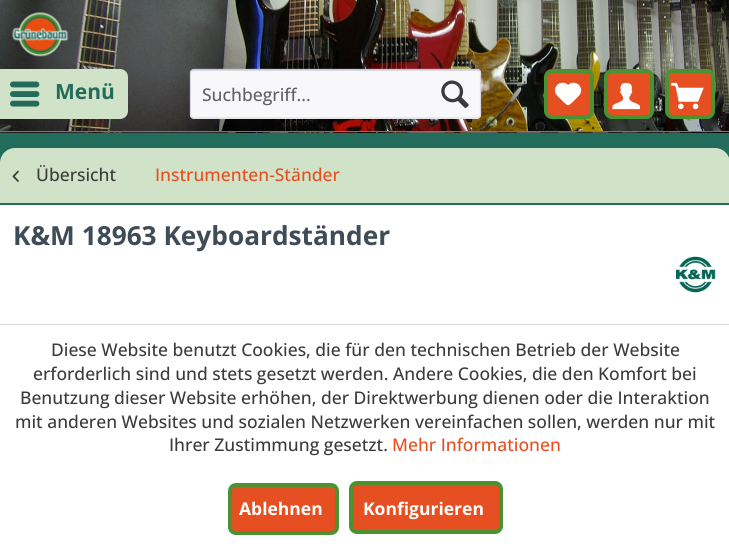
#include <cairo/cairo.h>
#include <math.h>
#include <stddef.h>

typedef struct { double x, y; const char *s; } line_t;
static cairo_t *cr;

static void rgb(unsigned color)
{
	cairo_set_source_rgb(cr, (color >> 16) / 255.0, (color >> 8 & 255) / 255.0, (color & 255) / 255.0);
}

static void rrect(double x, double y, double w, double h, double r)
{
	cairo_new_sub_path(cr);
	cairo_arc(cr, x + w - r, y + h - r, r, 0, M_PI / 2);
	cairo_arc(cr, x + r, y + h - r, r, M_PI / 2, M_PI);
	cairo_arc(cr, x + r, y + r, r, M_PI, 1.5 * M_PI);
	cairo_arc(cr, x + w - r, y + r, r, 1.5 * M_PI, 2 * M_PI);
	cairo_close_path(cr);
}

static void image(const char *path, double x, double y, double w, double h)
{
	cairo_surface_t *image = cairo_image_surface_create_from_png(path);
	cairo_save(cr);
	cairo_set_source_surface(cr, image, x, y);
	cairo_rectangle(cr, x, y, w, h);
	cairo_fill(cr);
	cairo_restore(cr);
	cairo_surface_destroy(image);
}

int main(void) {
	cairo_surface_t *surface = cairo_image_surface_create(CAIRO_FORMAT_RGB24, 729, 547);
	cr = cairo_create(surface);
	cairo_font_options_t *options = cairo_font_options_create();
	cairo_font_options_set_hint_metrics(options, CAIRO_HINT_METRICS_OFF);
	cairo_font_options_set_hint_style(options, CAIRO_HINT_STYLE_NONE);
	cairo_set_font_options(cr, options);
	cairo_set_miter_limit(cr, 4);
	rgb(0x236b5b);
	cairo_paint(cr);
	rgb(0x000000);
	cairo_rectangle(cr, 0, 132, 729, 1);
	cairo_fill(cr);
	image("img/1.png", 0, 0, 729, 133);
	rgb(0xe64f21);
	cairo_rectangle(cr, 0, 131, 729, 1);
	cairo_fill(cr);
	image("img/2.png", 12, 12, 56, 45);
	rgb(0xd0e2c8);
	cairo_new_path(cr);
	cairo_move_to(cr, 0, 69);
	cairo_line_to(cr, 120, 69);
	cairo_curve_to(cr, 124.5, 69, 128, 72.5, 128, 77);
	cairo_line_to(cr, 128, 111);
	cairo_curve_to(cr, 128, 115.5, 124.5, 119, 120, 119);
	cairo_line_to(cr, 0, 119);
	cairo_close_path(cr);
	cairo_fill(cr);
	image("img/3.png", 10, 81, 30, 26);
	rgb(0xf8f8fa);
	rrect(190, 69, 291, 50, 4);
	cairo_fill(cr);
	rgb(0xdadae5);
	cairo_new_path(cr);
	cairo_move_to(cr, 194, 71);
	cairo_line_to(cr, 478, 71);
	cairo_line_to(cr, 480, 72);
	cairo_line_to(cr, 480, 74);
	cairo_curve_to(cr, 480, 72, 480, 70, 478, 70);
	cairo_line_to(cr, 194, 70);
	cairo_curve_to(cr, 191, 70, 191, 72, 191, 74);
	cairo_curve_to(cr, 191, 72, 192, 71, 194, 71);
	cairo_close_path(cr);
	cairo_fill(cr);
	cairo_new_path(cr);
	cairo_move_to(cr, 191.5, 70.5);
	cairo_line_to(cr, 194, 69.5);
	cairo_line_to(cr, 477.5, 69.5);
	cairo_line_to(cr, 479.5, 70.5);
	rgb(0xcbcbdb);
	cairo_set_line_width(cr, 1.2);
	cairo_stroke(cr);
	cairo_new_path(cr);
	cairo_move_to(cr, 479.5, 70.5);
	cairo_line_to(cr, 480.5, 72.5);
	cairo_line_to(cr, 480.5, 115);
	cairo_line_to(cr, 479.5, 117);
	cairo_line_to(cr, 477.5, 118);
	cairo_line_to(cr, 194, 118);
	cairo_line_to(cr, 191.5, 117);
	cairo_line_to(cr, 190.5, 115);
	cairo_line_to(cr, 190.5, 72.5);
	cairo_line_to(cr, 191.5, 70.5);
	rgb(0xdadae5);
	cairo_stroke(cr);
	image("img/4.png", 441, 80, 28, 28);
	rgb(0xe64f21);
	rrect(546, 71, 46, 46, 6);
	cairo_fill_preserve(cr);
	rgb(0x4d9132);
	cairo_set_line_width(cr, 4);
	cairo_stroke(cr);
	image("img/5.png", 555, 82, 27, 24);
	rgb(0xe64f21);
	rrect(606, 71, 46, 46, 6);
	cairo_fill_preserve(cr);
	rgb(0x4d9132);
	cairo_stroke(cr);
	image("img/6.png", 612, 82, 28, 28);
	rgb(0xe64f21);
	rrect(667, 71, 46, 46, 6);
	cairo_fill_preserve(cr);
	rgb(0x4d9132);
	cairo_stroke(cr);
	image("img/7.png", 671, 82, 33, 28);
	rgb(0xd0e2c8);
	rrect(0, 148, 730, 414, 15);
	cairo_fill(cr);
	rgb(0x236b5b);
	cairo_rectangle(cr, 0, 203, 729, 2);
	cairo_fill(cr);
	image("img/8.png", 12, 170, 7, 12);
	rgb(0xdadae5);
	cairo_rectangle(cr, 141, 163, 1, 23);
	cairo_fill(cr);
	rgb(0xffffff);
	cairo_rectangle(cr, 0, 205, 729, 119);
	cairo_fill(cr);
	image("img/9.png", 676, 256, 40, 37);
	cairo_rectangle(cr, 0, 325, 729, 222);
	cairo_fill(cr);
	rgb(0xdadae5);
	cairo_rectangle(cr, 0, 324, 729, 1);
	cairo_fill(cr);
	rgb(0xe64f21);
	rrect(230, 485, 107, 48, 6);
	cairo_fill_preserve(cr);
	rgb(0x4d9132);
	cairo_stroke(cr);
	rgb(0xe64f21);
	rrect(351, 483, 150, 49, 6);
	cairo_fill_preserve(cr);
	rgb(0x4d9132);
	cairo_stroke(cr);
	cairo_select_font_face(cr, "Open Sans", CAIRO_FONT_SLANT_NORMAL, CAIRO_FONT_WEIGHT_BOLD);
	cairo_set_font_size(cr, 21);
	rgb(0x236b5b);
	cairo_move_to(cr, 55, 99);
	cairo_show_text(cr, "Menü");
	cairo_select_font_face(cr, "Open Sans Medium", CAIRO_FONT_SLANT_NORMAL, CAIRO_FONT_WEIGHT_NORMAL);
	cairo_set_font_size(cr, 17.5);
	rgb(0x616161);
	cairo_move_to(cr, 202, 101);
	cairo_show_text(cr, "Suchbegriff...");
	rgb(0x3b3b3b);
	cairo_move_to(cr, 36, 181);
	cairo_show_text(cr, "Übersicht");
	rgb(0xe64f21);
	cairo_move_to(cr, 155, 181);
	cairo_show_text(cr, "Instrumenten-Ständer");
	cairo_select_font_face(cr, "Open Sans", CAIRO_FONT_SLANT_NORMAL, CAIRO_FONT_WEIGHT_BOLD);
	cairo_set_font_size(cr, 26.25);
	rgb(0x3f4c58);
	cairo_move_to(cr, 13, 245);
	cairo_show_text(cr, "K&M 18963 Keyboardständer");
	cairo_select_font_face(cr, "Open Sans Medium", CAIRO_FONT_SLANT_NORMAL, CAIRO_FONT_WEIGHT_NORMAL);
	cairo_set_font_size(cr, 17.5);
	rgb(0x3b3b3b);
	{
		static const line_t items[] = {
			{51, 356, "Diese Website benutzt Cookies, die für den technischen Betrieb der Website"},
			{33, 380, "erforderlich sind und stets gesetzt werden. Andere Cookies, die den Komfort bei"},
			{20, 404, "Benutzung dieser Website erhöhen, der Direktwerbung dienen oder die Interaktion"},
			{15, 428, "mit anderen Websites und sozialen Netzwerken vereinfachen sollen, werden nur mit"},
			{169, 451, "Ihrer Zustimmung gesetzt."},
		};
		for (size_t i = 0; i < sizeof items / sizeof *items; i++) {
			cairo_move_to(cr, items[i].x, items[i].y);
			cairo_show_text(cr, items[i].s);
		}
	}
	rgb(0xe64f21);
	cairo_move_to(cr, 392, 451);
	cairo_show_text(cr, "Mehr Informationen");
	cairo_select_font_face(cr, "Open Sans", CAIRO_FONT_SLANT_NORMAL, CAIRO_FONT_WEIGHT_BOLD);
	rgb(0xffffff);
	cairo_move_to(cr, 239, 515);
	cairo_show_text(cr, "Ablehnen");
	cairo_move_to(cr, 363, 515);
	cairo_show_text(cr, "Konfigurieren");
	cairo_surface_write_to_png(surface, "page.png");
	cairo_font_options_destroy(options);
	cairo_destroy(cr);
	cairo_surface_destroy(surface);
	return 0;
}
